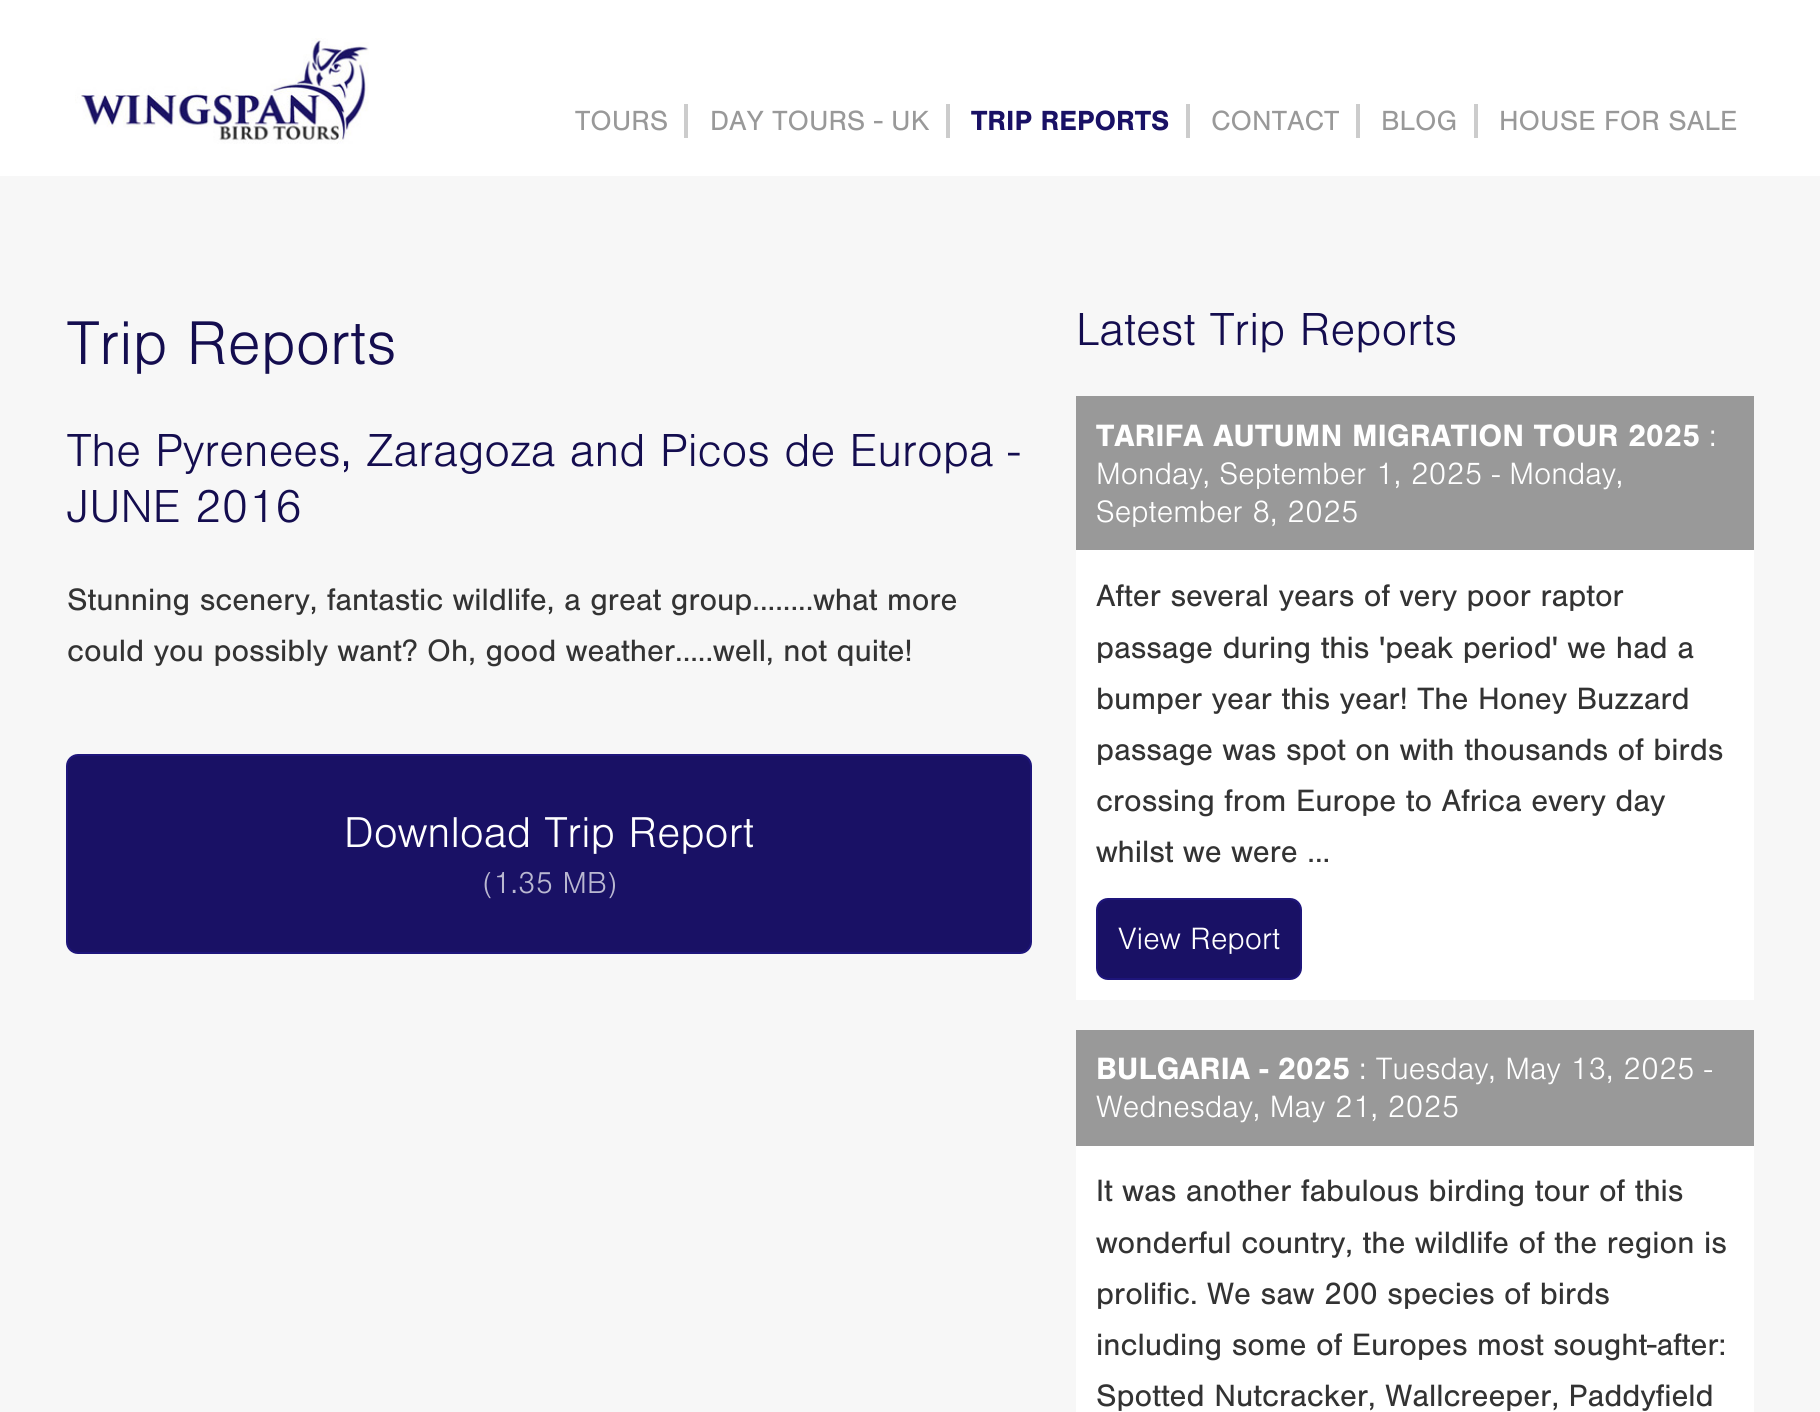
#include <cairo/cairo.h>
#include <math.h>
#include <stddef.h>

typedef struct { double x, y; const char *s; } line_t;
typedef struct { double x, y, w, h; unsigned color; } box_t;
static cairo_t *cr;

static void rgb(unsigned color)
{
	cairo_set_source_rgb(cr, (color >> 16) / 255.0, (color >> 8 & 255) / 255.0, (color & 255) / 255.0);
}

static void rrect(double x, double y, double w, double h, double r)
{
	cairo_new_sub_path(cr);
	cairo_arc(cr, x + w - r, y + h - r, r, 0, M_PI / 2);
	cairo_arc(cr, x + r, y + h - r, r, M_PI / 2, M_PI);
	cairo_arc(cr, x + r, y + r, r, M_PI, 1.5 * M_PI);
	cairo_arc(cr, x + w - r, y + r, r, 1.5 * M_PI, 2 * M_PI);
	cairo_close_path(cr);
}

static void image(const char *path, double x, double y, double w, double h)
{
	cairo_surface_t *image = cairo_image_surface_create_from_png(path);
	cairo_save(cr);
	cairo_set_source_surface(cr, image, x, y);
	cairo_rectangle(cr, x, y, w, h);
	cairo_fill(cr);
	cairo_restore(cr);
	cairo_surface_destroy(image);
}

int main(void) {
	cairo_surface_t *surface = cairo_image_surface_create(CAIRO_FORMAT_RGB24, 1820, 1412);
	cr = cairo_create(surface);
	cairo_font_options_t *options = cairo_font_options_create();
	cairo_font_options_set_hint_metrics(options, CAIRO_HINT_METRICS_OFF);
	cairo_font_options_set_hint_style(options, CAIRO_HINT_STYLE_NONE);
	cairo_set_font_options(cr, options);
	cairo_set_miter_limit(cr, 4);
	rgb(0xf7f7f7);
	cairo_paint(cr);
	rgb(0xffffff);
	cairo_rectangle(cr, 0, 0, 1820, 176);
	cairo_fill(cr);
	image("img/1.png", 75, 38, 294, 106);
	{
		static const box_t items[] = {
			{684, 104, 4, 34, 0xcccccc},
			{946, 104, 4, 34, 0xcccccc},
			{1186, 104, 4, 34, 0xcccccc},
			{1356, 104, 4, 34, 0xcccccc},
			{1474, 104, 4, 34, 0xcccccc},
		};
		for (size_t i = 0; i < sizeof items / sizeof *items; i++) {
			rgb(items[i].color);
			cairo_rectangle(cr, items[i].x, items[i].y, items[i].w, items[i].h);
			cairo_fill(cr);
		}
	}
	rgb(0x191165);
	rrect(67, 755, 964, 198, 11);
	cairo_fill_preserve(cr);
	rgb(0x1e157b);
	cairo_stroke(cr);
	rgb(0xffffff);
	cairo_rectangle(cr, 1076, 550, 678, 450);
	cairo_fill(cr);
	rgb(0x999999);
	cairo_rectangle(cr, 1076, 396, 678, 154);
	cairo_fill(cr);
	rgb(0x191165);
	rrect(1097, 899, 204, 80, 11);
	cairo_fill_preserve(cr);
	rgb(0x1e157b);
	cairo_stroke(cr);
	rgb(0xffffff);
	cairo_rectangle(cr, 1076, 1146, 678, 266);
	cairo_fill(cr);
	rgb(0x999999);
	cairo_rectangle(cr, 1076, 1030, 678, 116);
	cairo_fill(cr);
	cairo_select_font_face(cr, "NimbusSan", CAIRO_FONT_SLANT_NORMAL, CAIRO_FONT_WEIGHT_NORMAL);
	cairo_set_font_size(cr, 28.75);
	cairo_move_to(cr, 575, 130);
	cairo_show_text(cr, "TOURS");
	cairo_move_to(cr, 710, 130);
	cairo_show_text(cr, "DAY TOURS - UK");
	cairo_select_font_face(cr, "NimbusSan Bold", CAIRO_FONT_SLANT_NORMAL, CAIRO_FONT_WEIGHT_BOLD);
	rgb(0x191165);
	cairo_move_to(cr, 971, 130);
	cairo_show_text(cr, "TRIP REPORTS");
	cairo_select_font_face(cr, "NimbusSan", CAIRO_FONT_SLANT_NORMAL, CAIRO_FONT_WEIGHT_NORMAL);
	rgb(0x999999);
	{
		static const line_t items[] = {
			{1211, 130, "CONTACT"},
			{1381, 130, "BLOG"},
			{1499, 130, "HOUSE FOR SALE"},
		};
		for (size_t i = 0; i < sizeof items / sizeof *items; i++) {
			cairo_move_to(cr, items[i].x, items[i].y);
			cairo_show_text(cr, items[i].s);
		}
	}
	cairo_select_font_face(cr, "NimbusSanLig", CAIRO_FONT_SLANT_NORMAL, CAIRO_FONT_WEIGHT_NORMAL);
	cairo_set_font_size(cr, 64);
	rgb(0x140d4f);
	cairo_move_to(cr, 67, 364);
	cairo_show_text(cr, "Trip Reports");
	cairo_set_font_size(cr, 48);
	cairo_move_to(cr, 67, 466);
	cairo_show_text(cr, "The Pyrenees, Zaragoza and Picos de Europa -");
	cairo_move_to(cr, 67, 522);
	cairo_show_text(cr, "JUNE 2016");
	cairo_select_font_face(cr, "NimbusSan", CAIRO_FONT_SLANT_NORMAL, CAIRO_FONT_WEIGHT_NORMAL);
	cairo_set_font_size(cr, 32);
	rgb(0x333333);
	cairo_move_to(cr, 67, 610);
	cairo_show_text(cr, "Stunning scenery, fantastic wildlife, a great group........what more");
	cairo_move_to(cr, 67, 661);
	cairo_show_text(cr, "could you possibly want? Oh, good weather.....well, not quite!");
	cairo_select_font_face(cr, "NimbusSanLig", CAIRO_FONT_SLANT_NORMAL, CAIRO_FONT_WEIGHT_NORMAL);
	cairo_set_font_size(cr, 44.75);
	rgb(0xffffff);
	cairo_move_to(cr, 344, 847);
	cairo_show_text(cr, "Download Trip Report");
	cairo_set_font_size(cr, 31.5);
	rgb(0xbab8d1);
	cairo_move_to(cr, 483, 893);
	cairo_show_text(cr, "(1.35 MB)");
	cairo_set_font_size(cr, 48);
	rgb(0x140d4f);
	cairo_move_to(cr, 1076, 345);
	cairo_show_text(cr, "Latest Trip Reports");
	cairo_select_font_face(cr, "NimbusSan Bold", CAIRO_FONT_SLANT_NORMAL, CAIRO_FONT_WEIGHT_BOLD);
	cairo_set_font_size(cr, 32);
	rgb(0xffffff);
	cairo_move_to(cr, 1096, 446);
	cairo_show_text(cr, "TARIFA AUTUMN MIGRATION TOUR 2025");
	cairo_select_font_face(cr, "NimbusSanLig", CAIRO_FONT_SLANT_NORMAL, CAIRO_FONT_WEIGHT_NORMAL);
	{
		static const line_t items[] = {
			{1709, 446, ":"},
			{1096, 484, "Monday, September 1, 2025 - Monday,"},
			{1096, 522, "September 8, 2025"},
		};
		for (size_t i = 0; i < sizeof items / sizeof *items; i++) {
			cairo_move_to(cr, items[i].x, items[i].y);
			cairo_show_text(cr, items[i].s);
		}
	}
	cairo_select_font_face(cr, "NimbusSan", CAIRO_FONT_SLANT_NORMAL, CAIRO_FONT_WEIGHT_NORMAL);
	rgb(0x333333);
	{
		static const line_t items[] = {
			{1096, 606, "After several years of very poor raptor"},
			{1096, 658, "passage during this 'peak period' we had a"},
			{1096, 709, "bumper year this year! The Honey Buzzard"},
			{1096, 760, "passage was spot on with thousands of birds"},
			{1096, 811, "crossing from Europe to Africa every day"},
			{1096, 862, "whilst we were ..."},
		};
		for (size_t i = 0; i < sizeof items / sizeof *items; i++) {
			cairo_move_to(cr, items[i].x, items[i].y);
			cairo_show_text(cr, items[i].s);
		}
	}
	cairo_select_font_face(cr, "NimbusSanLig", CAIRO_FONT_SLANT_NORMAL, CAIRO_FONT_WEIGHT_NORMAL);
	rgb(0xffffff);
	cairo_move_to(cr, 1118, 949);
	cairo_show_text(cr, "View Report");
	cairo_select_font_face(cr, "NimbusSan Bold", CAIRO_FONT_SLANT_NORMAL, CAIRO_FONT_WEIGHT_BOLD);
	cairo_move_to(cr, 1096, 1079);
	cairo_show_text(cr, "BULGARIA - 2025");
	cairo_select_font_face(cr, "NimbusSanLig", CAIRO_FONT_SLANT_NORMAL, CAIRO_FONT_WEIGHT_NORMAL);
	cairo_move_to(cr, 1359, 1079);
	cairo_show_text(cr, ": Tuesday, May 13, 2025 -");
	cairo_move_to(cr, 1096, 1117);
	cairo_show_text(cr, "Wednesday, May 21, 2025");
	cairo_select_font_face(cr, "NimbusSan", CAIRO_FONT_SLANT_NORMAL, CAIRO_FONT_WEIGHT_NORMAL);
	rgb(0x333333);
	{
		static const line_t items[] = {
			{1096, 1201, "It was another fabulous birding tour of this"},
			{1096, 1253, "wonderful country, the wildlife of the region is"},
			{1096, 1304, "prolific. We saw 200 species of birds"},
			{1096, 1355, "including some of Europes most sought-after:"},
			{1096, 1406, "Spotted Nutcracker, Wallcreeper, Paddyfield"},
		};
		for (size_t i = 0; i < sizeof items / sizeof *items; i++) {
			cairo_move_to(cr, items[i].x, items[i].y);
			cairo_show_text(cr, items[i].s);
		}
	}
	cairo_surface_write_to_png(surface, "page.png");
	cairo_font_options_destroy(options);
	cairo_destroy(cr);
	cairo_surface_destroy(surface);
	return 0;
}
